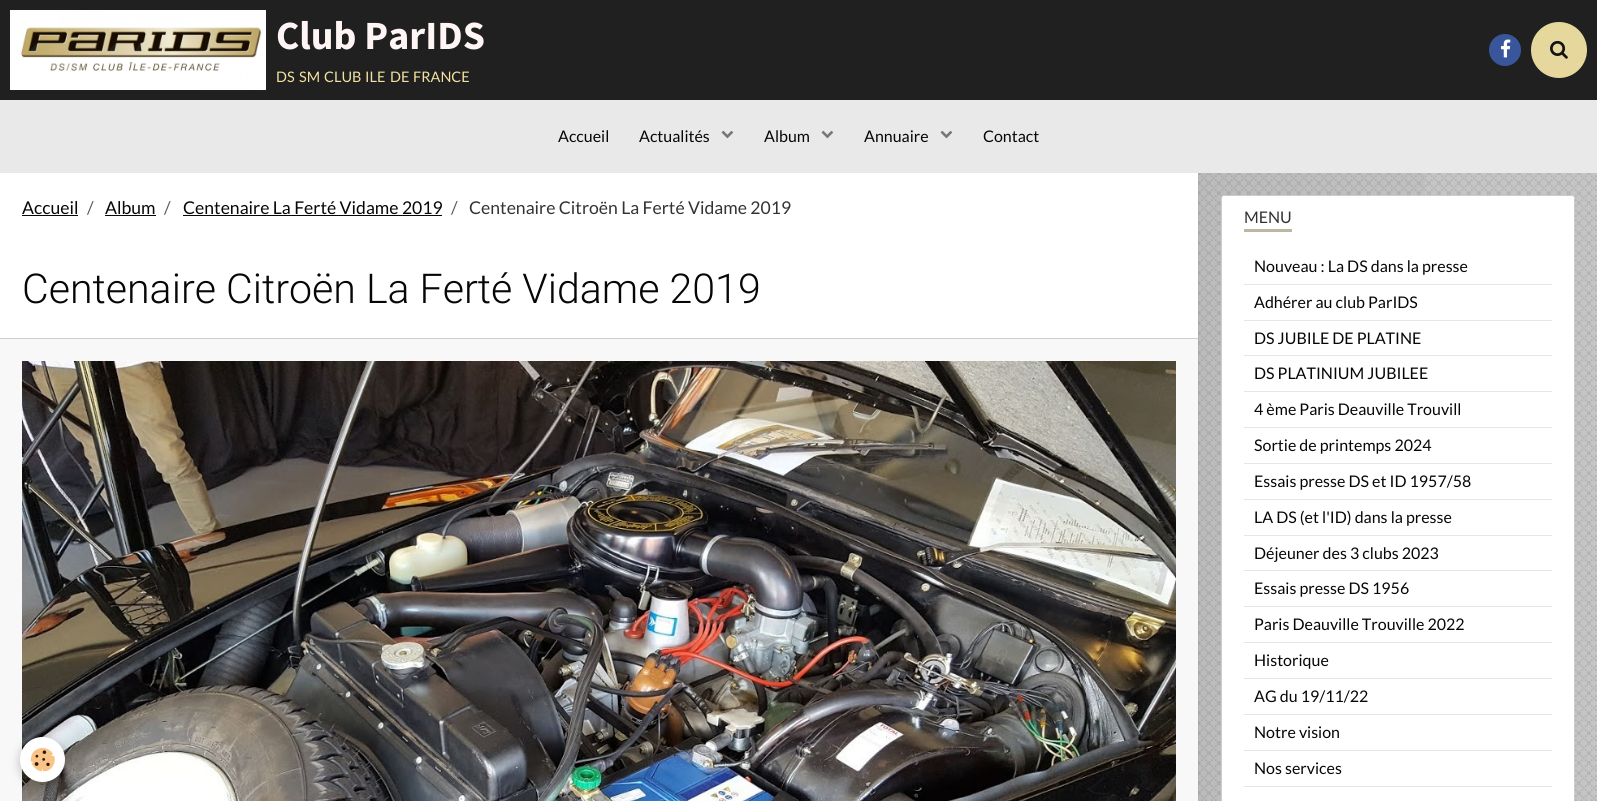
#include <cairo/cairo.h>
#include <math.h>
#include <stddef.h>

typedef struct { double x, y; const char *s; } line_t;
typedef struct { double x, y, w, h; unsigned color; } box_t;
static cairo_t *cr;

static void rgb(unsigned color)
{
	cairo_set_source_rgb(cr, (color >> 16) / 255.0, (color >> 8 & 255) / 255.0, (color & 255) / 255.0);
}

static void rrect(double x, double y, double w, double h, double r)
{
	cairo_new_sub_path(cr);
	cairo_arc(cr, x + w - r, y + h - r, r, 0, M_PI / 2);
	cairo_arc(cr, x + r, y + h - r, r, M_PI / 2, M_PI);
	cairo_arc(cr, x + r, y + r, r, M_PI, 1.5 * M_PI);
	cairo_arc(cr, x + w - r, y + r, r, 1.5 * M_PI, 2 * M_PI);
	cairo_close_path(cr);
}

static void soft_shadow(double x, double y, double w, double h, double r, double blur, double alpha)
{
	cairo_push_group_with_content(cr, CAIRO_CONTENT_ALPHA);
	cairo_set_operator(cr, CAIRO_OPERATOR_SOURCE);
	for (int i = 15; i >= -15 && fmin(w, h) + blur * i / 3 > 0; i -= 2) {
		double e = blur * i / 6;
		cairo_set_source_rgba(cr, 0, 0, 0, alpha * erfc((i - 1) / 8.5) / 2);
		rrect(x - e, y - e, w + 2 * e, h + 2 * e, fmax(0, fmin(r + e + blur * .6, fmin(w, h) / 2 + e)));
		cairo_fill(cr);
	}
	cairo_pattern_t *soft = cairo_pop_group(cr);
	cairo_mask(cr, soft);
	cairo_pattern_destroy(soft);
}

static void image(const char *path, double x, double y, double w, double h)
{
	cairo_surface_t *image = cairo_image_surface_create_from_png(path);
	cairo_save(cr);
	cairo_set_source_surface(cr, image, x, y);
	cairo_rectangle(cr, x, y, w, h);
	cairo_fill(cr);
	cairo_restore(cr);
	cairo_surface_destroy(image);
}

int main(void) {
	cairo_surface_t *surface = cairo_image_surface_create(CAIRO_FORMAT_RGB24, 1597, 801);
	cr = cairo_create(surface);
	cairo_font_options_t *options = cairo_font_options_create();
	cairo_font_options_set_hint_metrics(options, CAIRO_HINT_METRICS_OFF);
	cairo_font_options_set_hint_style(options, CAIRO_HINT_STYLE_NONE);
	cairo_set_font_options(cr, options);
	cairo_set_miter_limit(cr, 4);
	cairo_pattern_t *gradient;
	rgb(0xf8f8f8);
	cairo_paint(cr);
	rgb(0x202020);
	cairo_rectangle(cr, 0, 0, 1597, 100);
	cairo_fill(cr);
	image("img/1.png", 10, 10, 256, 80);
	rgb(0x385699);
	cairo_arc(cr, 1505, 50, 16, 0, 2 * M_PI);
	cairo_fill(cr);
	image("img/2.png", 1501, 39, 10, 19);
	rgb(0xe6d79c);
	cairo_arc(cr, 1559, 50, 28, 0, 2 * M_PI);
	cairo_fill(cr);
	image("img/3.png", 1550, 40, 18, 19);
	rgb(0xe9e9e9);
	cairo_rectangle(cr, 0, 100, 1597, 73);
	cairo_fill(cr);
	image("img/4.png", 721, 130, 13, 9);
	image("img/4.png", 821, 130, 13, 9);
	image("img/4.png", 940, 130, 13, 9);
	{
		static const box_t items[] = {
			{0, 173, 1198, 165, 0xffffff},
			{22, 215, 56, 1, 0x060606},
			{105, 215, 51, 1, 0x060606},
			{183, 215, 259, 1, 0x060606},
			{0, 338, 1198, 1, 0xcccccc},
		};
		for (size_t i = 0; i < sizeof items / sizeof *items; i++) {
			rgb(items[i].color);
			cairo_rectangle(cr, items[i].x, items[i].y, items[i].w, items[i].h);
			cairo_fill(cr);
		}
	}
	image("img/5.png", 22, 361, 1154, 440);
	rgb(0xc5c5c5);
	cairo_rectangle(cr, 1198, 173, 399, 628);
	cairo_fill(cr);
	image("img/6.png", 1198, 173, 399, 628);
	cairo_set_source_rgba(cr, 0, 0, 0, 0.1);
	cairo_rectangle(cr, 1198, 173, 1, 628);
	cairo_fill(cr);
	gradient = cairo_pattern_create_linear(1199, 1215, 1597, 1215);
	cairo_pattern_add_color_stop_rgba(gradient, 0, 0, 0, 0, 0.05);
	cairo_pattern_add_color_stop_rgba(gradient, 1, 0, 0, 0, 0);
	cairo_set_source(cr, gradient);
	cairo_pattern_destroy(gradient);
	cairo_rectangle(cr, 1199, 173, 226, 628);
	cairo_fill(cr);
	rgb(0xffffff);
	rrect(1221, 195, 354, 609, 3);
	cairo_fill(cr);
	rrect(1221.5, 195.5, 353, 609, 2.5);
	cairo_set_source_rgba(cr, 0, 0, 0, 0.2);
	cairo_set_line_width(cr, 1);
	cairo_stroke(cr);
	{
		static const box_t items[] = {
			{1244, 229, 48, 3, 0xbbb7a4},
			{1244, 284, 308, 1, 0xe6e6e6},
			{1244, 320, 308, 1, 0xe6e6e6},
			{1244, 355, 308, 1, 0xe6e6e6},
			{1244, 391, 308, 1, 0xe6e6e6},
			{1244, 427, 308, 1, 0xe6e6e6},
			{1244, 463, 308, 1, 0xe6e6e6},
			{1244, 499, 308, 1, 0xe6e6e6},
			{1244, 535, 308, 1, 0xe6e6e6},
			{1244, 570, 308, 1, 0xe6e6e6},
			{1244, 606, 308, 1, 0xe6e6e6},
			{1244, 642, 308, 1, 0xe6e6e6},
			{1244, 678, 308, 1, 0xe6e6e6},
			{1244, 714, 308, 1, 0xe6e6e6},
			{1244, 750, 308, 1, 0xe6e6e6},
			{1244, 786, 308, 1, 0xe6e6e6},
		};
		for (size_t i = 0; i < sizeof items / sizeof *items; i++) {
			rgb(items[i].color);
			cairo_rectangle(cr, items[i].x, items[i].y, items[i].w, items[i].h);
			cairo_fill(cr);
		}
	}
	rgb(0x000000);
	soft_shadow(20, 740, 45, 45, 22.5, 5, 0.24);
	rgb(0xffffff);
	cairo_arc(cr, 42.5, 759.5, 22.5, 0, 2 * M_PI);
	cairo_fill(cr);
	image("img/7.png", 30, 747, 25, 25);
	cairo_select_font_face(cr, "Source Sans Pro", CAIRO_FONT_SLANT_NORMAL, CAIRO_FONT_WEIGHT_BOLD);
	cairo_set_font_size(cr, 40);
	rgb(0xfff5f5);
	cairo_move_to(cr, 276, 49);
	cairo_show_text(cr, "Club ParIDS");
	cairo_select_font_face(cr, "Lato", CAIRO_FONT_SLANT_NORMAL, CAIRO_FONT_WEIGHT_NORMAL);
	cairo_set_font_size(cr, 14.5);
	rgb(0xf2e2a1);
	{
		static const line_t items[] = {
			{276, 82, "DS"},
			{299, 82, "SM"},
			{324, 82, "CLUB"},
			{365, 82, "ILE"},
			{390, 82, "DE"},
			{413, 82, "FRANCE"},
		};
		for (size_t i = 0; i < sizeof items / sizeof *items; i++) {
			cairo_move_to(cr, items[i].x, items[i].y);
			cairo_show_text(cr, items[i].s);
		}
	}
	cairo_set_font_size(cr, 16);
	rgb(0x060606);
	{
		static const line_t items[] = {
			{558, 142, "Accueil"},
			{639, 142, "Actualités"},
			{764, 142, "Album"},
			{864, 142, "Annuaire"},
			{983, 142, "Contact"},
		};
		for (size_t i = 0; i < sizeof items / sizeof *items; i++) {
			cairo_move_to(cr, items[i].x, items[i].y);
			cairo_show_text(cr, items[i].s);
		}
	}
	cairo_set_font_size(cr, 17.6);
	cairo_move_to(cr, 22, 214);
	cairo_show_text(cr, "Accueil");
	rgb(0x5c5c5c);
	cairo_move_to(cr, 87, 214);
	cairo_show_text(cr, "/");
	rgb(0x060606);
	cairo_move_to(cr, 105, 214);
	cairo_show_text(cr, "Album");
	rgb(0x5c5c5c);
	cairo_move_to(cr, 164, 214);
	cairo_show_text(cr, "/");
	rgb(0x060606);
	cairo_move_to(cr, 183, 214);
	cairo_show_text(cr, "Centenaire La Ferté Vidame 2019");
	rgb(0x5c5c5c);
	cairo_move_to(cr, 451, 214);
	cairo_show_text(cr, "/");
	rgb(0x333333);
	cairo_move_to(cr, 469, 214);
	cairo_show_text(cr, "Centenaire Citroën La Ferté Vidame 2019");
	cairo_select_font_face(cr, "Roboto Light", CAIRO_FONT_SLANT_NORMAL, CAIRO_FONT_WEIGHT_NORMAL);
	cairo_set_font_size(cr, 41.1);
	rgb(0x060606);
	cairo_move_to(cr, 22, 303);
	cairo_show_text(cr, "Centenaire Citroën La Ferté Vidame 2019");
	cairo_select_font_face(cr, "Lato", CAIRO_FONT_SLANT_NORMAL, CAIRO_FONT_WEIGHT_NORMAL);
	cairo_set_font_size(cr, 16);
	rgb(0x333333);
	cairo_move_to(cr, 1244, 223);
	cairo_show_text(cr, "MENU");
	rgb(0x060606);
	{
		static const line_t items[] = {
			{1254, 272, "Nouveau : La DS dans la presse"},
			{1254, 308, "Adhérer au club ParIDS"},
			{1254, 344, "DS JUBILE DE PLATINE"},
			{1254, 379, "DS PLATINIUM JUBILEE"},
			{1254, 415, "4 ème Paris Deauville Trouvill"},
			{1254, 451, "Sortie de printemps 2024"},
			{1254, 487, "Essais presse DS et ID 1957/58"},
			{1254, 523, "LA DS (et l'ID) dans la presse"},
			{1254, 559, "Déjeuner des 3 clubs 2023"},
			{1254, 594, "Essais presse DS 1956"},
			{1254, 630, "Paris Deauville Trouville 2022"},
			{1254, 666, "Historique"},
			{1254, 702, "AG du 19/11/22"},
			{1254, 738, "Notre vision"},
			{1254, 774, "Nos services"},
		};
		for (size_t i = 0; i < sizeof items / sizeof *items; i++) {
			cairo_move_to(cr, items[i].x, items[i].y);
			cairo_show_text(cr, items[i].s);
		}
	}
	cairo_surface_write_to_png(surface, "page.png");
	cairo_font_options_destroy(options);
	cairo_destroy(cr);
	cairo_surface_destroy(surface);
	return 0;
}
